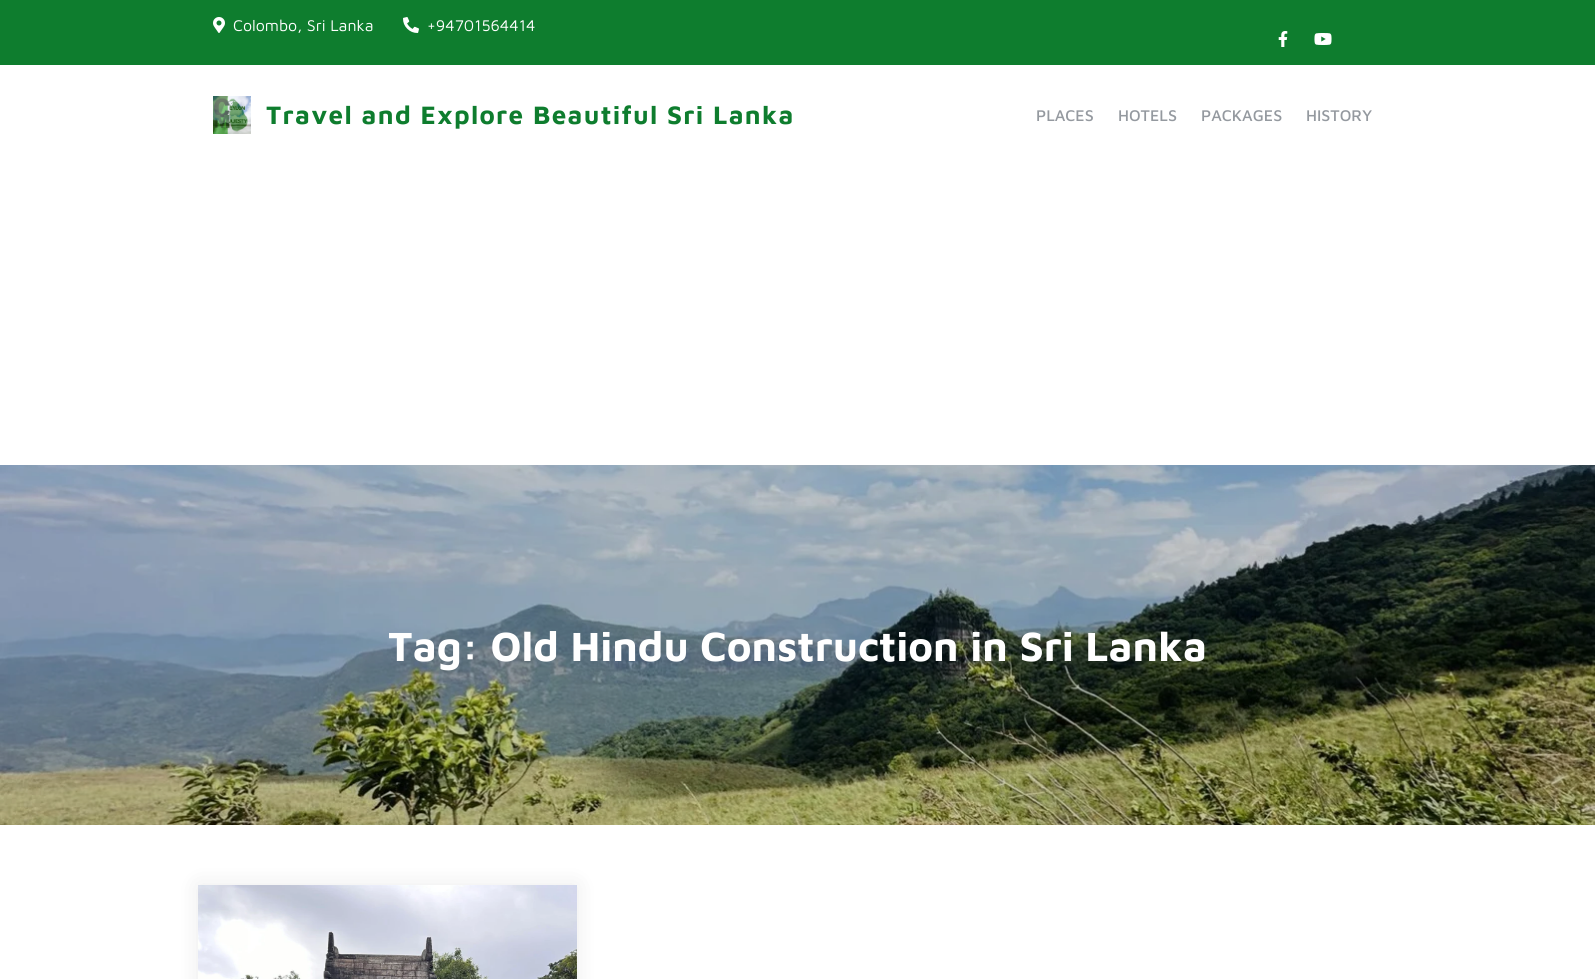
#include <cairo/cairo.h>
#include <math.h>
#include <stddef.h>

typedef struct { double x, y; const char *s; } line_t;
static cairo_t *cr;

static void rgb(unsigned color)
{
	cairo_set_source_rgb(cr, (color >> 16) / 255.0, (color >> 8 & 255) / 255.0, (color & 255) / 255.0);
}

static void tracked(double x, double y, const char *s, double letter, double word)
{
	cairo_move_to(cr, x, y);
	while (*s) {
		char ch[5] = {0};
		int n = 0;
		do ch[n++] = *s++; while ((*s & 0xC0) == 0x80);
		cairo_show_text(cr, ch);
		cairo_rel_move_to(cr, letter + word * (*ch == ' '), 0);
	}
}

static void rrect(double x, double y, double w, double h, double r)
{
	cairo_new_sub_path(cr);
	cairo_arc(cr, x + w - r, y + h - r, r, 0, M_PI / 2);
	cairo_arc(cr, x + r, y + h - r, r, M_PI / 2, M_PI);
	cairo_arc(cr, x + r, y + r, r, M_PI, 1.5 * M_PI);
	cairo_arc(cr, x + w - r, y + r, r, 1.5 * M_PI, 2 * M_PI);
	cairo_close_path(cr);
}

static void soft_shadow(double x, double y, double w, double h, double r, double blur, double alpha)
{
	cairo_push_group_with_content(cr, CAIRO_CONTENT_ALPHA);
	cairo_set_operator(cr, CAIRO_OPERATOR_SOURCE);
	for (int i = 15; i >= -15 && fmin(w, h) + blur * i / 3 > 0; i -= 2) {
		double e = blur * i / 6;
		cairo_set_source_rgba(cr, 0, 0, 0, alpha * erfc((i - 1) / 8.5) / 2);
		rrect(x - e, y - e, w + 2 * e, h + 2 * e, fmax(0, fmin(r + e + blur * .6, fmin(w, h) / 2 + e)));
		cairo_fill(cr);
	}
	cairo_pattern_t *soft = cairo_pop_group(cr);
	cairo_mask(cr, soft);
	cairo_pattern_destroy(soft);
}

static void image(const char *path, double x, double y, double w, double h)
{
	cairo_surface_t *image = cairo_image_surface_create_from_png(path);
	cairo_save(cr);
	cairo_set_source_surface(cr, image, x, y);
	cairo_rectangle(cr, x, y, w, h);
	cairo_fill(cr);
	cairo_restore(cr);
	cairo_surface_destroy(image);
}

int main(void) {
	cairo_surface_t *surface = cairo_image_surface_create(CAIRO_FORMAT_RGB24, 1595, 979);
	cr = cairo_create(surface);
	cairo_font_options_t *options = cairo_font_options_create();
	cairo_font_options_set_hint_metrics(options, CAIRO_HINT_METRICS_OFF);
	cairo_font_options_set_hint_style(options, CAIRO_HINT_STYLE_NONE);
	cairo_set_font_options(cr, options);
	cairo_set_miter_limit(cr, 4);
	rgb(0xffffff);
	cairo_paint(cr);
	rgb(0x0e7d2e);
	cairo_rectangle(cr, 0, 0, 1595, 65);
	cairo_fill(cr);
	image("img/1.png", 213, 17, 12, 16);
	image("img/2.png", 403, 17, 16, 16);
	image("img/3.png", 1278, 31, 10, 16);
	image("img/4.png", 1314, 33, 18, 12);
	image("img/5.png", 213, 96, 38, 38);
	image("img/6.png", 0, 465, 1595, 360);
	rgb(0x0a0a0a);
	soft_shadow(198, 885, 379, 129, 0, 11.5, 0.08);
	image("img/7.png", 198, 885, 379, 94);
	cairo_select_font_face(cr, "Maven Pro", CAIRO_FONT_SLANT_NORMAL, CAIRO_FONT_WEIGHT_NORMAL);
	cairo_set_font_size(cr, 16);
	rgb(0xffffff);
	cairo_move_to(cr, 233, 31);
	cairo_show_text(cr, "Colombo, Sri Lanka");
	cairo_move_to(cr, 427, 31);
	cairo_show_text(cr, "+94701564414");
	cairo_select_font_face(cr, "Maven Pro", CAIRO_FONT_SLANT_NORMAL, CAIRO_FONT_WEIGHT_BOLD);
	cairo_set_font_size(cr, 26);
	rgb(0x0e7d2e);
	tracked(266, 124, "Travel and Explore Beautiful Sri Lanka", 1.3, 0);
	cairo_select_font_face(cr, "Maven Pro Medium", CAIRO_FONT_SLANT_NORMAL, CAIRO_FONT_WEIGHT_NORMAL);
	cairo_set_font_size(cr, 16);
	rgb(0x94999f);
	{
		static const line_t items[] = {
			{1036, 121, "PLACES"},
			{1118, 121, "HOTELS"},
			{1201, 121, "PACKAGES"},
			{1306, 121, "HISTORY"},
		};
		for (size_t i = 0; i < sizeof items / sizeof *items; i++) {
			cairo_move_to(cr, items[i].x, items[i].y);
			cairo_show_text(cr, items[i].s);
		}
	}
	cairo_select_font_face(cr, "Maven Pro", CAIRO_FONT_SLANT_NORMAL, CAIRO_FONT_WEIGHT_BOLD);
	cairo_set_font_size(cr, 42);
	rgb(0xffffff);
	cairo_move_to(cr, 388, 661);
	cairo_show_text(cr, "Tag: Old Hindu Construction in Sri Lanka");
	cairo_surface_write_to_png(surface, "page.png");
	cairo_font_options_destroy(options);
	cairo_destroy(cr);
	cairo_surface_destroy(surface);
	return 0;
}
